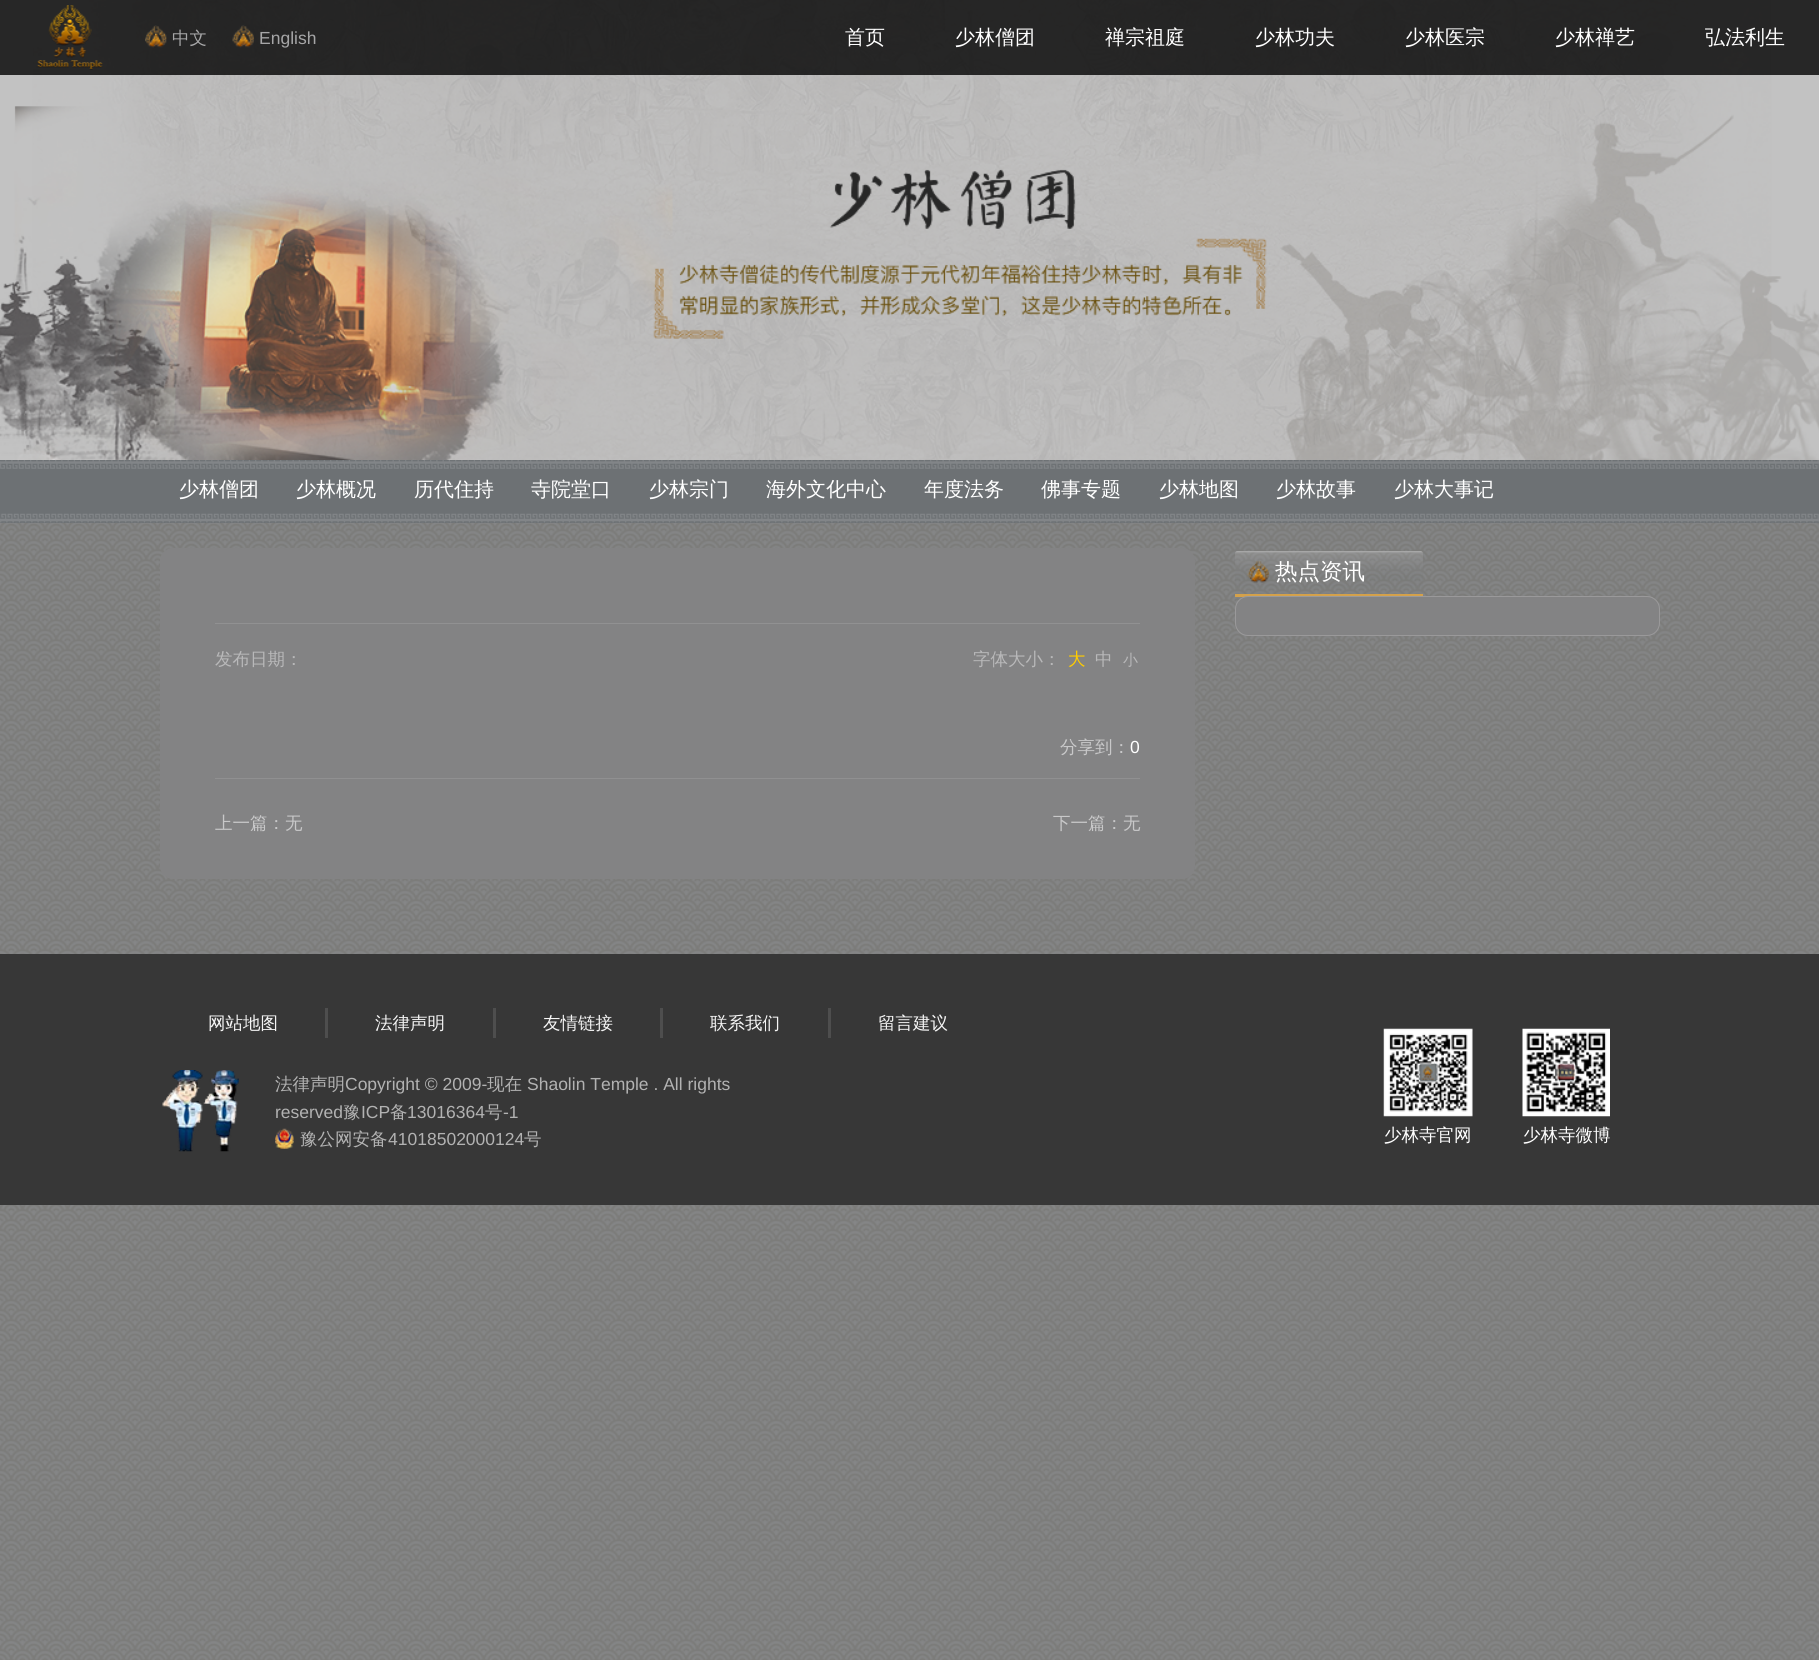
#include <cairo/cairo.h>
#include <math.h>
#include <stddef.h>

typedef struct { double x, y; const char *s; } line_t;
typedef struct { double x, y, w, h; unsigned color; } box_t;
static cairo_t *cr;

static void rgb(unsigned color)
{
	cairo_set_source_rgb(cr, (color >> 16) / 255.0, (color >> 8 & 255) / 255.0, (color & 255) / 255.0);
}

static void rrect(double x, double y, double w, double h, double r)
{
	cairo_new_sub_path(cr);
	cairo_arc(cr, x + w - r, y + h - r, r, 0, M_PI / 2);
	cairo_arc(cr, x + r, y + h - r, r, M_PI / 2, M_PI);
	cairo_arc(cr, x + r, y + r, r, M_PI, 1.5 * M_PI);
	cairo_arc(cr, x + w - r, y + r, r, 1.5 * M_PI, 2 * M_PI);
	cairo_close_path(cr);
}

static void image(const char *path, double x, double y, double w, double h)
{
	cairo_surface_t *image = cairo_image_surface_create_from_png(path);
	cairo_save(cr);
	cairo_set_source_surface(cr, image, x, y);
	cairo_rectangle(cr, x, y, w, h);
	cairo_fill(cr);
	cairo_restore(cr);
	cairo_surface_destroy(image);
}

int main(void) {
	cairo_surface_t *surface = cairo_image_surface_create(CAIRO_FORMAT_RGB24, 1819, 1660);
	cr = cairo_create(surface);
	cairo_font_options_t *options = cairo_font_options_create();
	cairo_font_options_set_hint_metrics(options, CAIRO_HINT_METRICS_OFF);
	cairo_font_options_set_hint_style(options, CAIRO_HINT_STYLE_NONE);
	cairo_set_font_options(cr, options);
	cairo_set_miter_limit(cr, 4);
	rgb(0xffffff);
	cairo_paint(cr);
	image("img/1.png", 0, 523, 1819, 1137);
	image("img/2.png", 0, 0, 1819, 460);
	cairo_set_source_rgba(cr, 0, 0, 0, 0.8);
	cairo_rectangle(cr, 0, 0, 1819, 75);
	cairo_fill(cr);
	image("img/3.png", 37, 5, 66, 65);
	image("img/4.png", 145, 25, 22, 23);
	image("img/5.png", 232, 25, 22, 23);
	rgb(0x6d7174);
	cairo_rectangle(cr, 0, 460, 1819, 63);
	cairo_fill(cr);
	image("img/6.png", 0, 460, 1819, 63);
	rgb(0xd4a14b);
	cairo_rectangle(cr, 1235, 594, 188, 3);
	cairo_fill(cr);
	image("img/7.png", 1247, 560, 22, 23);
	rgb(0x838384);
	rrect(1235.5, 596.5, 424, 39, 12.5);
	cairo_fill_preserve(cr);
	rgb(0x9a999a);
	cairo_set_line_width(cr, 1);
	cairo_stroke(cr);
	rgb(0x838384);
	rrect(160, 548, 1035, 331, 13);
	cairo_fill(cr);
	{
		static const box_t items[] = {
			{215, 623, 925, 1, 0x919192},
			{215, 778, 925, 1, 0x909091},
			{0, 954, 1819, 251, 0x373737},
			{325, 1008, 3, 30, 0x4e4e4e},
			{493, 1008, 3, 30, 0x4e4e4e},
			{660, 1008, 3, 30, 0x4e4e4e},
			{828, 1008, 3, 30, 0x4e4e4e},
		};
		for (size_t i = 0; i < sizeof items / sizeof *items; i++) {
			rgb(items[i].color);
			cairo_rectangle(cr, items[i].x, items[i].y, items[i].w, items[i].h);
			cairo_fill(cr);
		}
	}
	image("img/8.png", 162, 1070, 77, 82);
	image("img/9.png", 275, 1128, 19, 21);
	image("img/10.png", 1383, 1028, 90, 89);
	image("img/11.png", 1522, 1028, 88, 89);
	cairo_select_font_face(cr, "WenQuanYi Zen Hei Medium", CAIRO_FONT_SLANT_NORMAL, CAIRO_FONT_WEIGHT_NORMAL);
	cairo_set_font_size(cr, 17.5);
	rgb(0xa6a6a7);
	cairo_move_to(cr, 172, 44);
	cairo_show_text(cr, "中文");
	cairo_select_font_face(cr, "Liberation Sans", CAIRO_FONT_SLANT_NORMAL, CAIRO_FONT_WEIGHT_NORMAL);
	cairo_move_to(cr, 259, 44);
	cairo_show_text(cr, "English");
	cairo_select_font_face(cr, "WenQuanYi Zen Hei Medium", CAIRO_FONT_SLANT_NORMAL, CAIRO_FONT_WEIGHT_NORMAL);
	cairo_set_font_size(cr, 20);
	rgb(0xffffff);
	{
		static const line_t items[] = {
			{845, 44, "首页"},
			{955, 44, "少林僧团"},
			{1105, 44, "禅宗祖庭"},
			{1255, 44, "少林功夫"},
			{1405, 44, "少林医宗"},
			{1555, 44, "少林禅艺"},
			{1705, 44, "弘法利生"},
			{179, 496, "少林僧团"},
			{296, 496, "少林概况"},
			{414, 496, "历代住持"},
			{531, 496, "寺院堂口"},
			{649, 496, "少林宗门"},
			{766, 496, "海外文化中心"},
			{924, 496, "年度法务"},
			{1041, 496, "佛事专题"},
			{1159, 496, "少林地图"},
			{1276, 496, "少林故事"},
			{1394, 496, "少林大事记"},
		};
		for (size_t i = 0; i < sizeof items / sizeof *items; i++) {
			cairo_move_to(cr, items[i].x, items[i].y);
			cairo_show_text(cr, items[i].s);
		}
	}
	cairo_set_font_size(cr, 22.5);
	cairo_move_to(cr, 1275, 579);
	cairo_show_text(cr, "热点资讯");
	cairo_set_font_size(cr, 17.5);
	rgb(0xb8b8b9);
	cairo_move_to(cr, 215, 665);
	cairo_show_text(cr, "发布日期：");
	cairo_move_to(cr, 973, 665);
	cairo_show_text(cr, "字体大小：");
	rgb(0xffcc00);
	cairo_move_to(cr, 1068, 665);
	cairo_show_text(cr, "大");
	rgb(0xb8b8b9);
	cairo_move_to(cr, 1095, 665);
	cairo_show_text(cr, "中");
	cairo_set_font_size(cr, 15);
	cairo_move_to(cr, 1123, 665);
	cairo_show_text(cr, "小");
	cairo_set_font_size(cr, 17.5);
	rgb(0xc8c8c9);
	cairo_move_to(cr, 1060, 753);
	cairo_show_text(cr, "分享到：");
	cairo_select_font_face(cr, "Liberation Sans", CAIRO_FONT_SLANT_NORMAL, CAIRO_FONT_WEIGHT_NORMAL);
	rgb(0xffffff);
	cairo_move_to(cr, 1130, 753);
	cairo_show_text(cr, "0");
	cairo_select_font_face(cr, "WenQuanYi Zen Hei Medium", CAIRO_FONT_SLANT_NORMAL, CAIRO_FONT_WEIGHT_NORMAL);
	rgb(0xc8c8c9);
	cairo_move_to(cr, 215, 829);
	cairo_show_text(cr, "上一篇：无");
	cairo_move_to(cr, 1053, 829);
	cairo_show_text(cr, "下一篇：无");
	rgb(0xf5f5f5);
	{
		static const line_t items[] = {
			{208, 1029, "网站地图"},
			{375, 1029, "法律声明"},
			{543, 1029, "友情链接"},
			{710, 1029, "联系我们"},
			{878, 1029, "留言建议"},
		};
		for (size_t i = 0; i < sizeof items / sizeof *items; i++) {
			cairo_move_to(cr, items[i].x, items[i].y);
			cairo_show_text(cr, items[i].s);
		}
	}
	rgb(0xb2b2b2);
	cairo_move_to(cr, 275, 1090);
	cairo_show_text(cr, "法律声明");
	cairo_select_font_face(cr, "Liberation Sans", CAIRO_FONT_SLANT_NORMAL, CAIRO_FONT_WEIGHT_NORMAL);
	cairo_move_to(cr, 345, 1090);
	cairo_show_text(cr, "Copyright © 2009-");
	cairo_select_font_face(cr, "WenQuanYi Zen Hei Medium", CAIRO_FONT_SLANT_NORMAL, CAIRO_FONT_WEIGHT_NORMAL);
	cairo_move_to(cr, 487, 1090);
	cairo_show_text(cr, "现在");
	cairo_select_font_face(cr, "Liberation Sans", CAIRO_FONT_SLANT_NORMAL, CAIRO_FONT_WEIGHT_NORMAL);
	cairo_move_to(cr, 527, 1090);
	cairo_show_text(cr, "Shaolin Temple . All rights");
	cairo_move_to(cr, 275, 1118);
	cairo_show_text(cr, "reserved");
	cairo_select_font_face(cr, "WenQuanYi Zen Hei Medium", CAIRO_FONT_SLANT_NORMAL, CAIRO_FONT_WEIGHT_NORMAL);
	cairo_move_to(cr, 343, 1118);
	cairo_show_text(cr, "豫");
	cairo_select_font_face(cr, "Liberation Sans", CAIRO_FONT_SLANT_NORMAL, CAIRO_FONT_WEIGHT_NORMAL);
	cairo_move_to(cr, 361, 1118);
	cairo_show_text(cr, "ICP");
	cairo_select_font_face(cr, "WenQuanYi Zen Hei Medium", CAIRO_FONT_SLANT_NORMAL, CAIRO_FONT_WEIGHT_NORMAL);
	cairo_move_to(cr, 390, 1118);
	cairo_show_text(cr, "备");
	cairo_select_font_face(cr, "Liberation Sans", CAIRO_FONT_SLANT_NORMAL, CAIRO_FONT_WEIGHT_NORMAL);
	cairo_move_to(cr, 407, 1118);
	cairo_show_text(cr, "13016364");
	cairo_select_font_face(cr, "WenQuanYi Zen Hei Medium", CAIRO_FONT_SLANT_NORMAL, CAIRO_FONT_WEIGHT_NORMAL);
	cairo_move_to(cr, 485, 1118);
	cairo_show_text(cr, "号");
	cairo_select_font_face(cr, "Liberation Sans", CAIRO_FONT_SLANT_NORMAL, CAIRO_FONT_WEIGHT_NORMAL);
	cairo_move_to(cr, 503, 1118);
	cairo_show_text(cr, "-1");
	cairo_select_font_face(cr, "WenQuanYi Zen Hei Medium", CAIRO_FONT_SLANT_NORMAL, CAIRO_FONT_WEIGHT_NORMAL);
	cairo_move_to(cr, 300, 1145);
	cairo_show_text(cr, "豫公网安备");
	cairo_select_font_face(cr, "Liberation Sans", CAIRO_FONT_SLANT_NORMAL, CAIRO_FONT_WEIGHT_NORMAL);
	cairo_move_to(cr, 388, 1145);
	cairo_show_text(cr, "41018502000124");
	cairo_select_font_face(cr, "WenQuanYi Zen Hei Medium", CAIRO_FONT_SLANT_NORMAL, CAIRO_FONT_WEIGHT_NORMAL);
	cairo_move_to(cr, 524, 1145);
	cairo_show_text(cr, "号");
	rgb(0xffffff);
	cairo_move_to(cr, 1384, 1141);
	cairo_show_text(cr, "少林寺官网");
	cairo_move_to(cr, 1523, 1141);
	cairo_show_text(cr, "少林寺微博");
	cairo_surface_write_to_png(surface, "page.png");
	cairo_font_options_destroy(options);
	cairo_destroy(cr);
	cairo_surface_destroy(surface);
	return 0;
}
